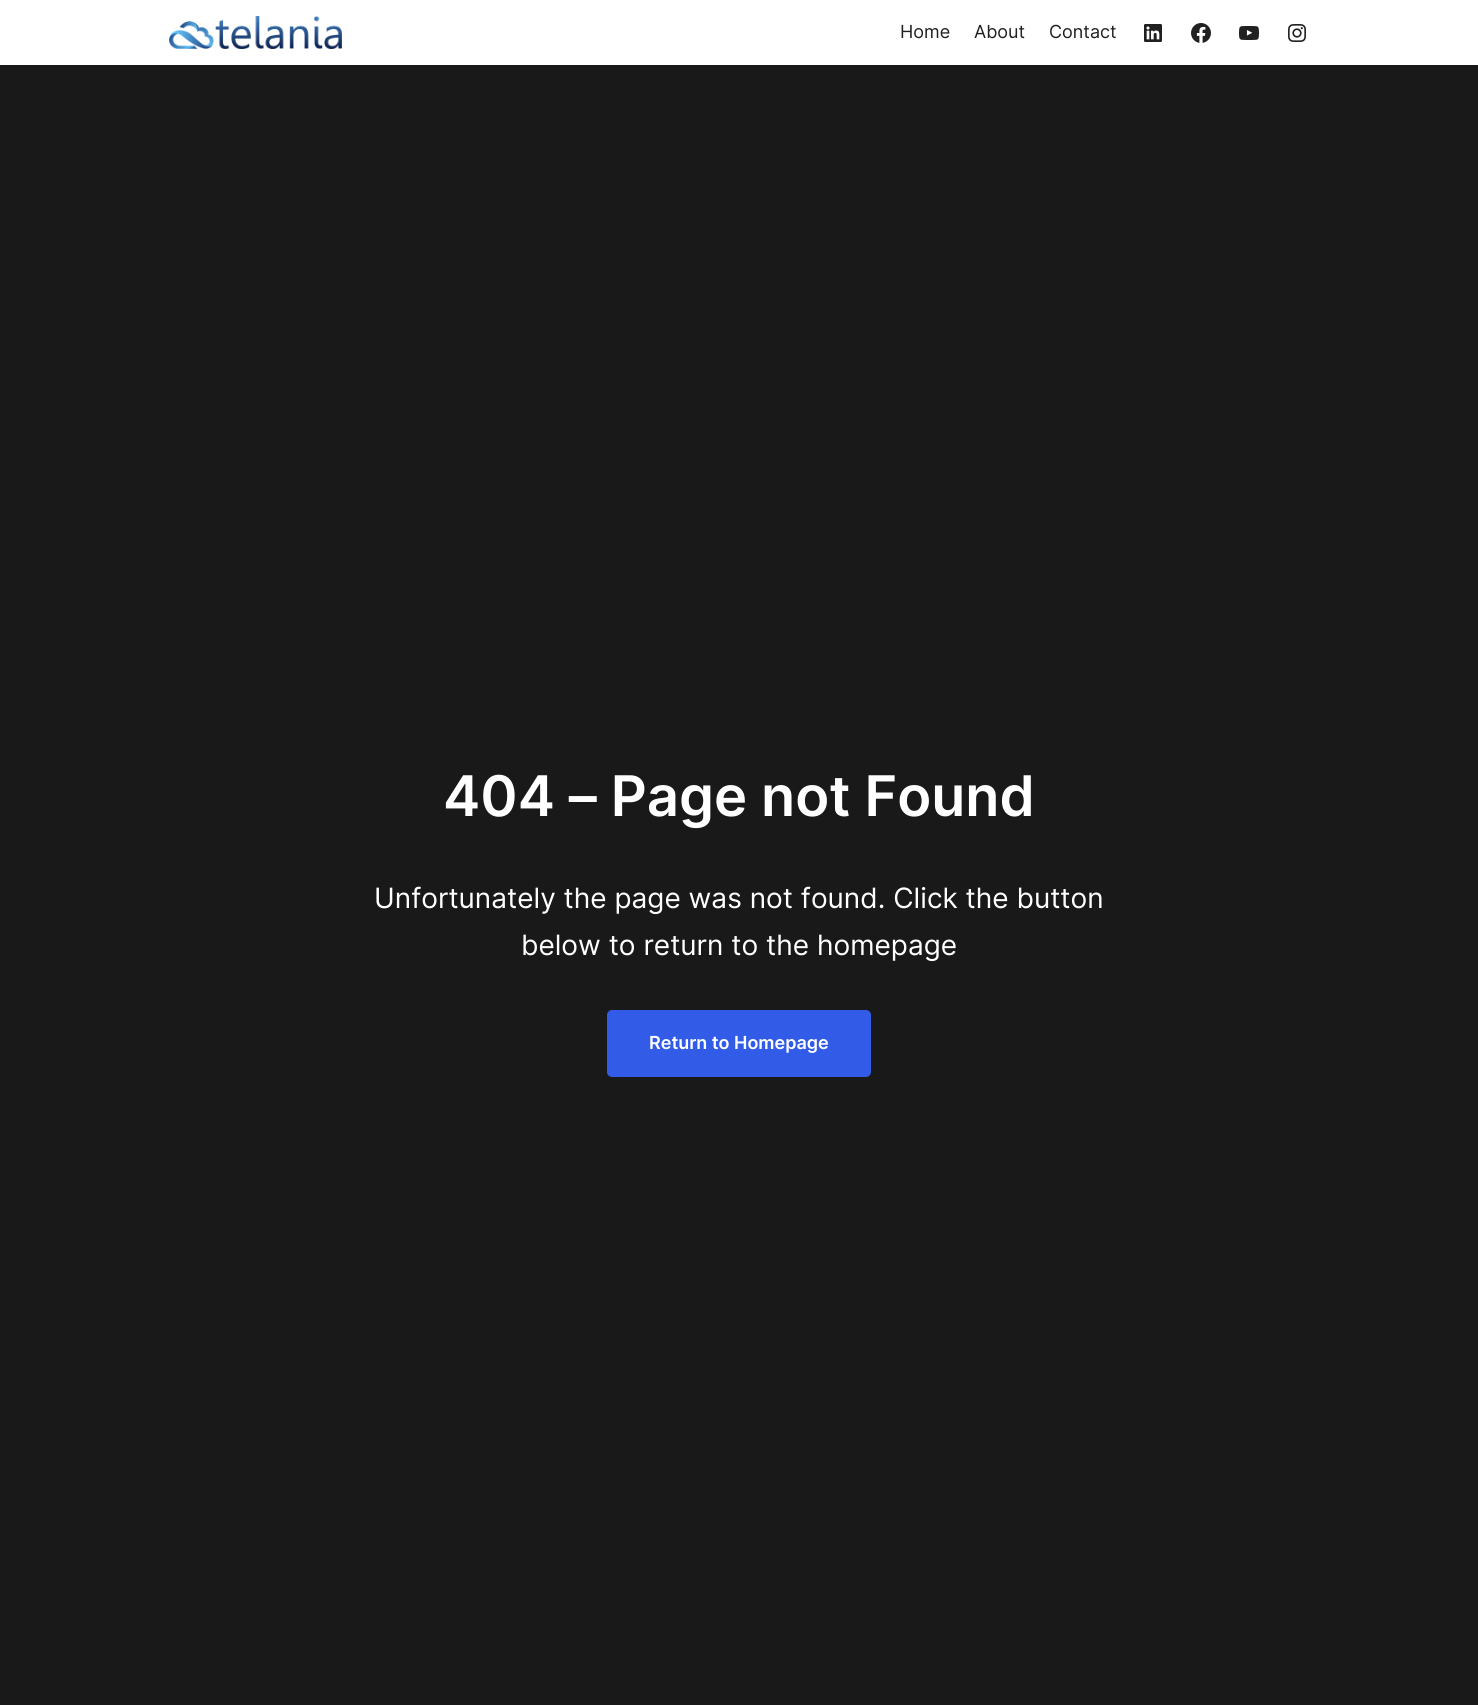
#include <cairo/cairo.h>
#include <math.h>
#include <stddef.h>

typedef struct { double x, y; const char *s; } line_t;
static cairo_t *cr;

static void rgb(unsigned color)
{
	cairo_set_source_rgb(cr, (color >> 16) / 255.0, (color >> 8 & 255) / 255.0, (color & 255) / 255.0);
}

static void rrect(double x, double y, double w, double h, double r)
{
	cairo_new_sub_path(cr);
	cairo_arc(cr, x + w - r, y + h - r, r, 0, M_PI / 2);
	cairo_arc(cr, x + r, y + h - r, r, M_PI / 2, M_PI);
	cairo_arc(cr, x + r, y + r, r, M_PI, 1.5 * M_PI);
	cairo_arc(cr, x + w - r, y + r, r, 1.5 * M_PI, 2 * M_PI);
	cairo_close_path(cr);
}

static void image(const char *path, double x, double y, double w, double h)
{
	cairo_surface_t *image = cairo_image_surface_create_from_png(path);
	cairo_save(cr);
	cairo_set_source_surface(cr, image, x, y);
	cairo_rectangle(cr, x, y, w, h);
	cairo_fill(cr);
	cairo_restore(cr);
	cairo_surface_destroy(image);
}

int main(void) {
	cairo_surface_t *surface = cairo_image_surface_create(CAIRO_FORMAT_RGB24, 1478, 1705);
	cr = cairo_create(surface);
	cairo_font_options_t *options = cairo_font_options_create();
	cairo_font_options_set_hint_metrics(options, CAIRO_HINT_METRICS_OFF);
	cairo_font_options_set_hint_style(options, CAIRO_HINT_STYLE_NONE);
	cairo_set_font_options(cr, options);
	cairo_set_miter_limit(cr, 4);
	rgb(0xffffff);
	cairo_paint(cr);
	image("img/1.png", 169, 16, 173, 33);
	image("img/2.png", 1144, 24, 18, 18);
	image("img/3.png", 1191, 23, 20, 20);
	image("img/4.png", 1239, 26, 20, 14);
	image("img/5.png", 1288, 24, 18, 18);
	rgb(0x1a1919);
	cairo_rectangle(cr, 0, 65, 1478, 1640);
	cairo_fill(cr);
	rgb(0x325ce8);
	rrect(608, 1011, 262, 65, 4);
	cairo_fill_preserve(cr);
	cairo_stroke(cr);
	cairo_select_font_face(cr, "Inter", CAIRO_FONT_SLANT_NORMAL, CAIRO_FONT_WEIGHT_NORMAL);
	cairo_set_font_size(cr, 18);
	rgb(0x202020);
	{
		static const line_t items[] = {
			{900, 38, "Home"},
			{974, 38, "About"},
			{1049, 38, "Contact"},
		};
		for (size_t i = 0; i < sizeof items / sizeof *items; i++) {
			cairo_move_to(cr, items[i].x, items[i].y);
			cairo_show_text(cr, items[i].s);
		}
	}
	cairo_select_font_face(cr, "Inter SemiBold", CAIRO_FONT_SLANT_NORMAL, CAIRO_FONT_WEIGHT_NORMAL);
	cairo_set_font_size(cr, 56);
	rgb(0xffffff);
	cairo_move_to(cr, 443, 816);
	cairo_show_text(cr, "404 – Page not Found");
	cairo_select_font_face(cr, "Inter", CAIRO_FONT_SLANT_NORMAL, CAIRO_FONT_WEIGHT_NORMAL);
	cairo_set_font_size(cr, 28);
	cairo_move_to(cr, 374, 908);
	cairo_show_text(cr, "Unfortunately the page was not found. Click the button");
	cairo_move_to(cr, 521, 955);
	cairo_show_text(cr, "below to return to the homepage");
	cairo_select_font_face(cr, "Inter SemiBold", CAIRO_FONT_SLANT_NORMAL, CAIRO_FONT_WEIGHT_NORMAL);
	cairo_set_font_size(cr, 18);
	cairo_move_to(cr, 649, 1049);
	cairo_show_text(cr, "Return to Homepage");
	cairo_surface_write_to_png(surface, "page.png");
	cairo_font_options_destroy(options);
	cairo_destroy(cr);
	cairo_surface_destroy(surface);
	return 0;
}
